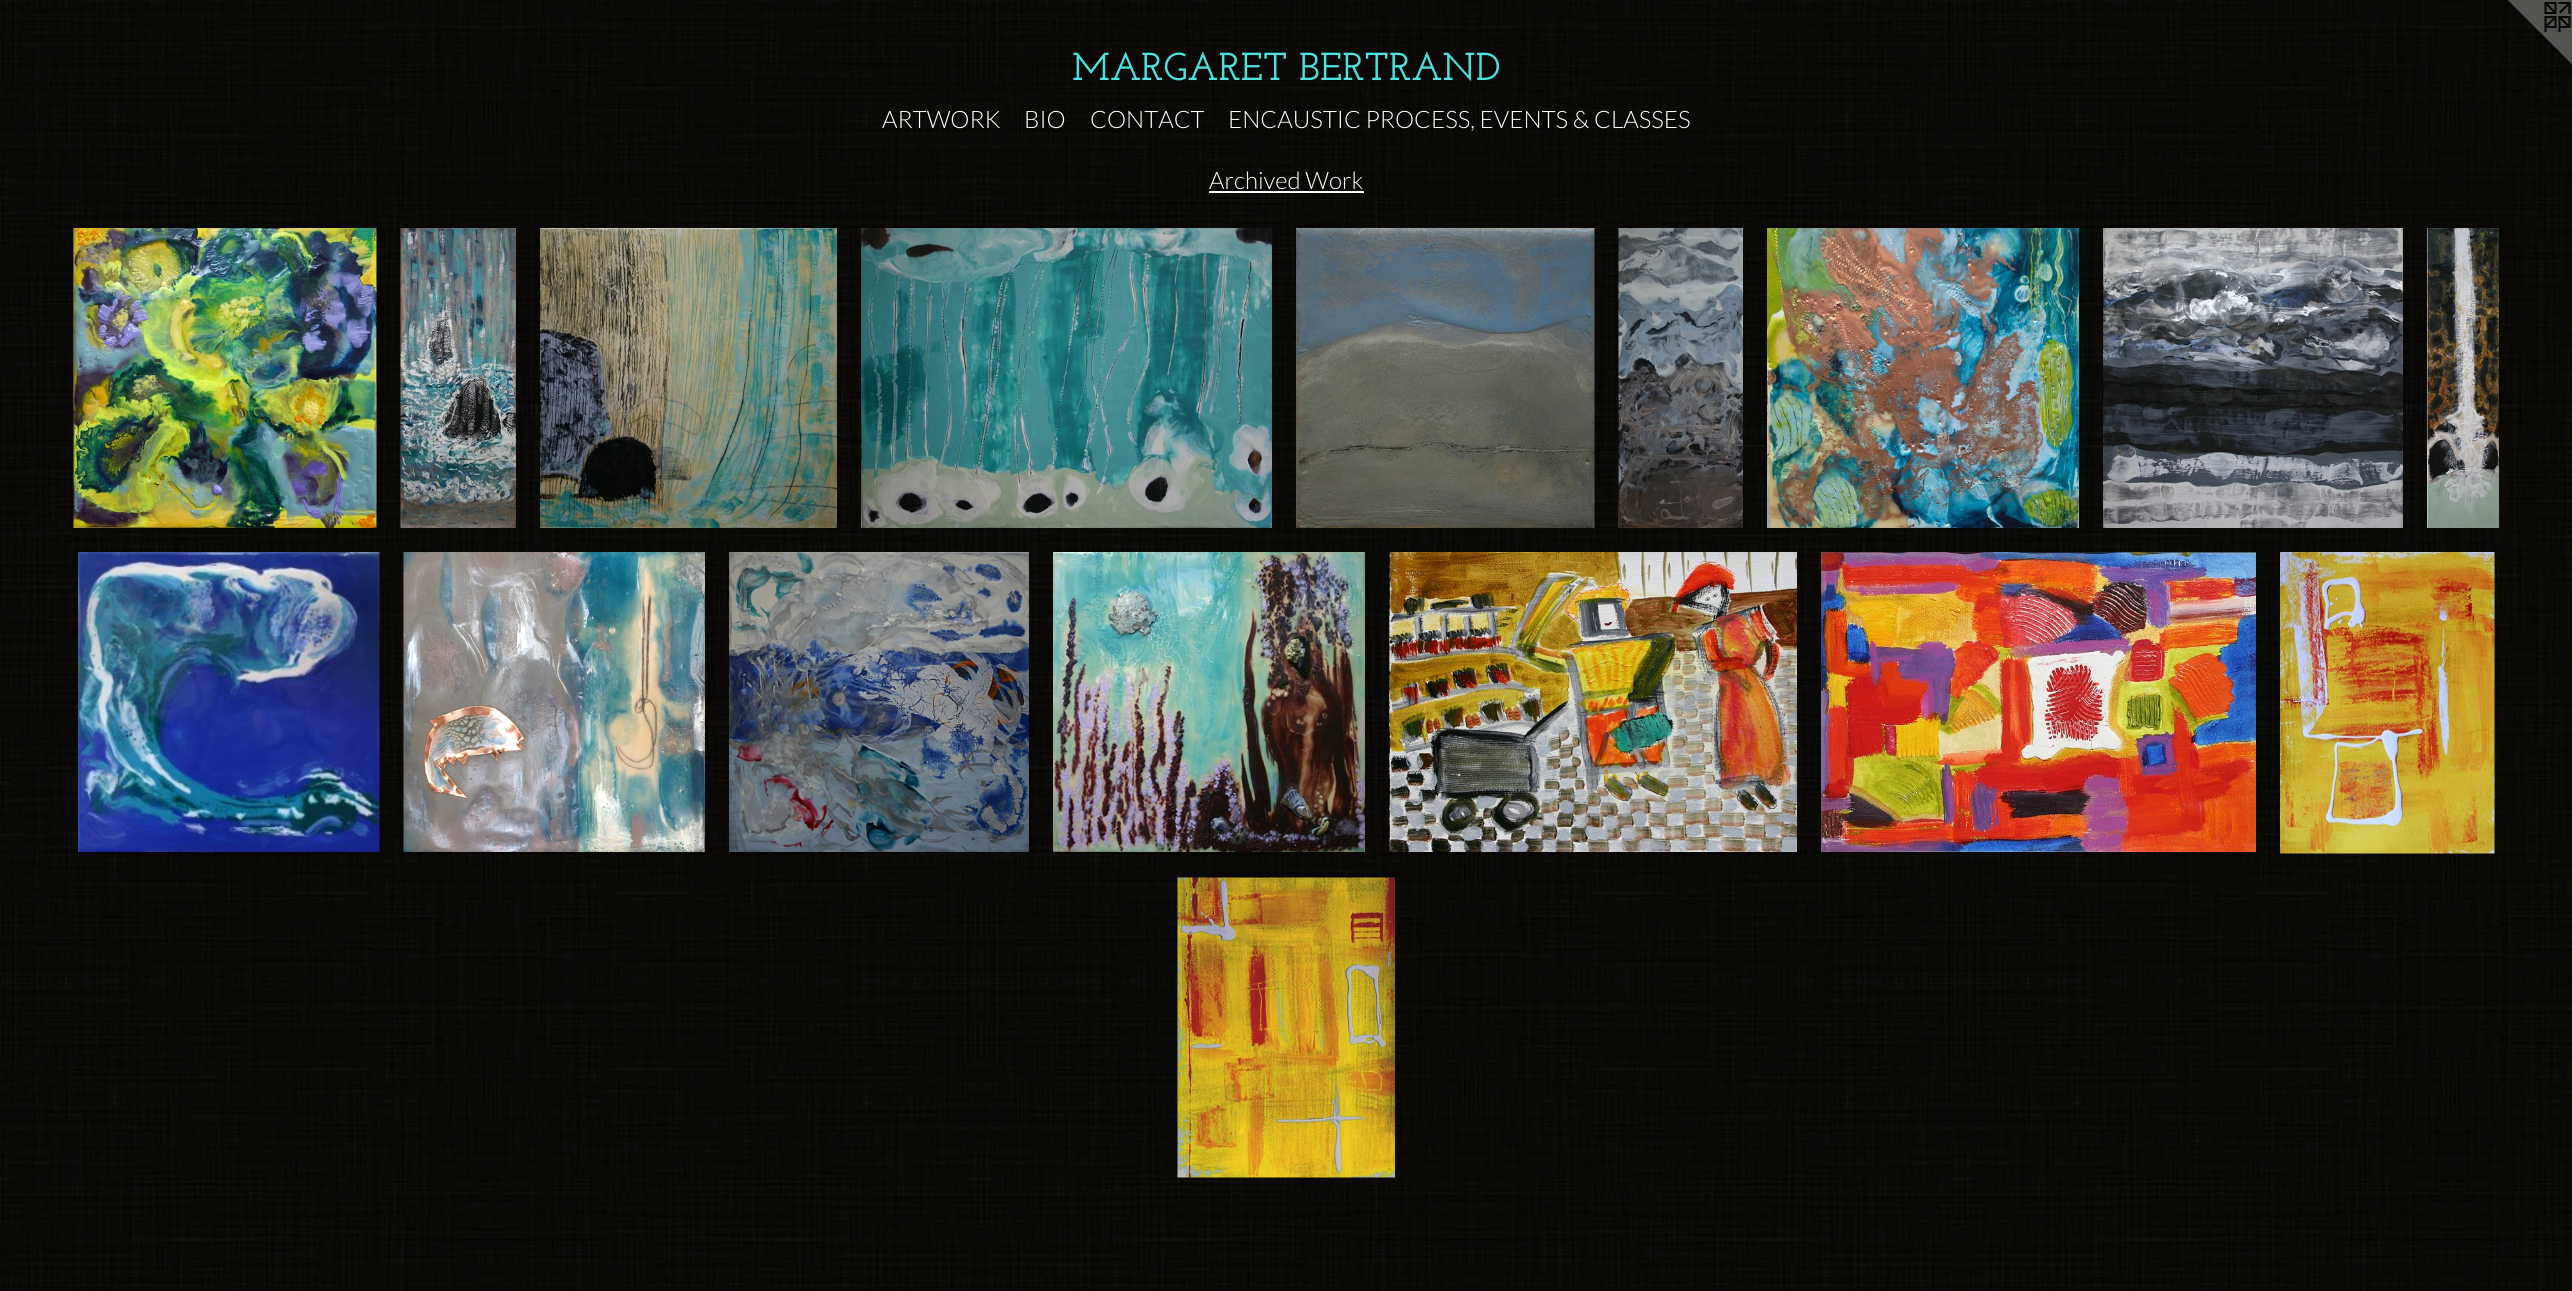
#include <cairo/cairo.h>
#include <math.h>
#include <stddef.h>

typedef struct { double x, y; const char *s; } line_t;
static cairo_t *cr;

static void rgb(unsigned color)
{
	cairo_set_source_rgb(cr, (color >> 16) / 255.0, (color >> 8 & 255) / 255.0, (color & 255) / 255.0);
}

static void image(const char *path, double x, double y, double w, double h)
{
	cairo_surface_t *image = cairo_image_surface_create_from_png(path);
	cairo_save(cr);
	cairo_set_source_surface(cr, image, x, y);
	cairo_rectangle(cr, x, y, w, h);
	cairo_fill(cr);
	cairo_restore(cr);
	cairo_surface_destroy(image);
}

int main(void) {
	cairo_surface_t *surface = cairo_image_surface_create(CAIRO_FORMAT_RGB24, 2572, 1291);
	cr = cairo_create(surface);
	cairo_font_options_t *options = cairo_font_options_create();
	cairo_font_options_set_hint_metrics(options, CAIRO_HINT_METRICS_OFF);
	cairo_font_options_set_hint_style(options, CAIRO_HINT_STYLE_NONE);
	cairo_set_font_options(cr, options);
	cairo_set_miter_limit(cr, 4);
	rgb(0xffffff);
	cairo_paint(cr);
	image("img/1.png", 0, 0, 2572, 1291);
	image("img/2.png", 2508, 0, 64, 64);
	rgb(0xffffff);
	cairo_rectangle(cr, 1209, 191, 155, 2);
	cairo_fill(cr);
	image("img/3.png", 73, 228, 304, 300);
	image("img/4.png", 400, 228, 116, 300);
	image("img/5.png", 540, 228, 297, 300);
	image("img/6.png", 861, 228, 411, 300);
	image("img/7.png", 1296, 228, 299, 300);
	image("img/8.png", 1618, 228, 125, 300);
	image("img/9.png", 1767, 228, 312, 300);
	image("img/10.png", 2103, 228, 300, 300);
	image("img/11.png", 2427, 228, 72, 300);
	image("img/12.png", 78, 552, 302, 300);
	image("img/13.png", 403, 552, 302, 300);
	image("img/14.png", 729, 552, 300, 300);
	image("img/15.png", 1053, 552, 312, 300);
	image("img/16.png", 1389, 552, 408, 300);
	image("img/17.png", 1821, 552, 435, 300);
	image("img/18.png", 2280, 552, 215, 302);
	image("img/19.png", 1177, 877, 218, 301);
	cairo_select_font_face(cr, "Josefin Slab Thin", CAIRO_FONT_SLANT_NORMAL, CAIRO_FONT_WEIGHT_NORMAL);
	cairo_set_font_size(cr, 39);
	rgb(0x4be2e0);
	cairo_move_to(cr, 1072, 80);
	cairo_show_text(cr, "MARGARET BERTRAND");
	cairo_select_font_face(cr, "Lato Light", CAIRO_FONT_SLANT_NORMAL, CAIRO_FONT_WEIGHT_NORMAL);
	cairo_set_font_size(cr, 24);
	rgb(0xffffff);
	{
		static const line_t items[] = {
			{882, 128, "ARTWORK"},
			{1024, 128, "BIO"},
			{1090, 128, "CONTACT"},
			{1228, 128, "ENCAUSTIC PROCESS, EVENTS & CLASSES"},
			{1209, 189, "Archived Work"},
		};
		for (size_t i = 0; i < sizeof items / sizeof *items; i++) {
			cairo_move_to(cr, items[i].x, items[i].y);
			cairo_show_text(cr, items[i].s);
		}
	}
	cairo_surface_write_to_png(surface, "page.png");
	cairo_font_options_destroy(options);
	cairo_destroy(cr);
	cairo_surface_destroy(surface);
	return 0;
}
